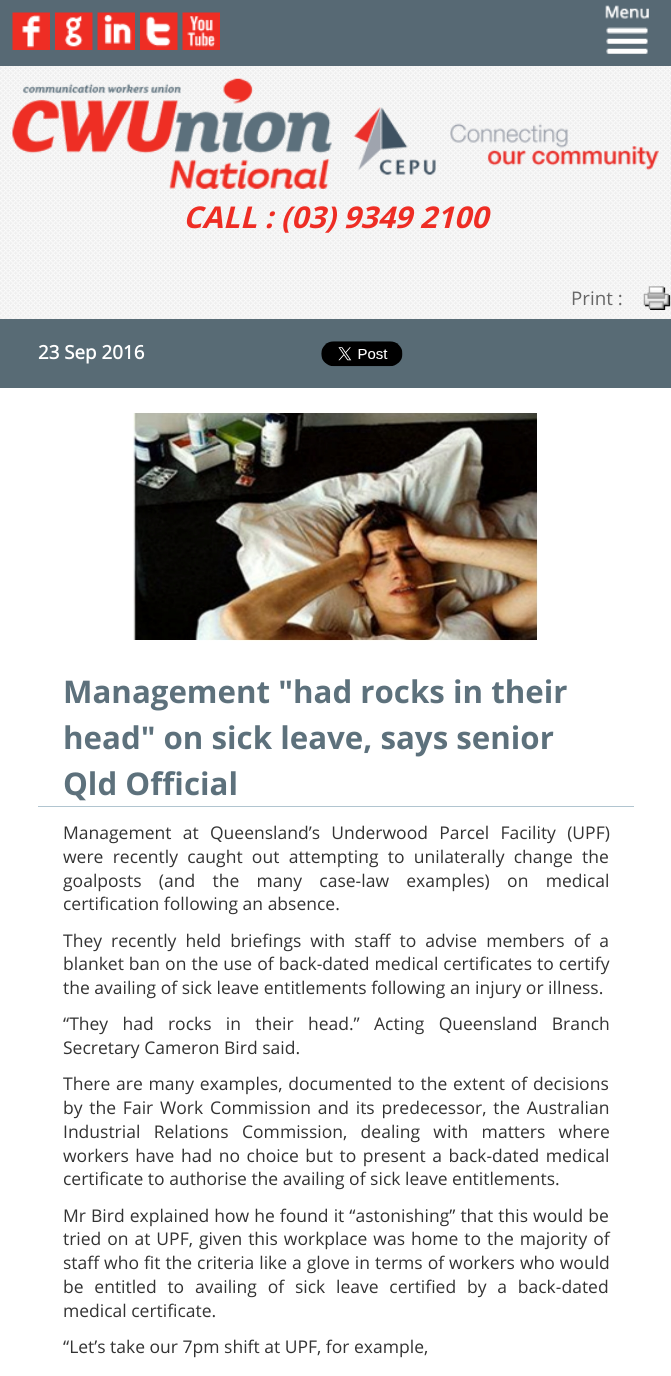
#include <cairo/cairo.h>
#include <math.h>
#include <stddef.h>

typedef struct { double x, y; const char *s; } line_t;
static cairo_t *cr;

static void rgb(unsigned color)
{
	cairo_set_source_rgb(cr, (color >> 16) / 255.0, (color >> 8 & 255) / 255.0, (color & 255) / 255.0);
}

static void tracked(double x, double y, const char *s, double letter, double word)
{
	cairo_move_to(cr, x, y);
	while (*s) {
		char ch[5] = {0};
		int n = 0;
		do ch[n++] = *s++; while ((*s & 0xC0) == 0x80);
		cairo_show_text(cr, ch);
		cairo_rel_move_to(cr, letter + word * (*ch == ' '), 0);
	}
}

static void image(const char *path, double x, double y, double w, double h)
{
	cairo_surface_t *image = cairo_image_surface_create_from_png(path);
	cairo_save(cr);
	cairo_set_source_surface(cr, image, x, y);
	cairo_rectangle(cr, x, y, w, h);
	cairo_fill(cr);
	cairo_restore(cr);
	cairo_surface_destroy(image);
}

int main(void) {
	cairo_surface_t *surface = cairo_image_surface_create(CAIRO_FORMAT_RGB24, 671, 1376);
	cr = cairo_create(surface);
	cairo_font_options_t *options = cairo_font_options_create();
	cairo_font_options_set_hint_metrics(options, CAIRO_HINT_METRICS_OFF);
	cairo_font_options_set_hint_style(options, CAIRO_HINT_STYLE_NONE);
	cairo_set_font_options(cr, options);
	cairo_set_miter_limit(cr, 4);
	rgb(0xffffff);
	cairo_paint(cr);
	image("img/1.png", 0, 66, 671, 253);
	rgb(0x576974);
	cairo_rectangle(cr, 0, 0, 671, 66);
	cairo_fill(cr);
	image("img/2.png", 12, 12, 38, 38);
	image("img/3.png", 55, 12, 38, 38);
	image("img/4.png", 97, 12, 38, 38);
	image("img/5.png", 140, 12, 38, 38);
	image("img/6.png", 182, 12, 38, 38);
	image("img/7.png", 605, 5, 44, 49);
	image("img/8.png", 12, 78, 647, 111);
	image("img/9.png", 643, 286, 28, 24);
	rgb(0x586b75);
	cairo_rectangle(cr, 0, 319, 671, 69);
	cairo_fill(cr);
	image("img/10.png", 321, 341, 82, 26);
	image("img/11.png", 133, 412, 405, 229);
	rgb(0xb1c5d0);
	cairo_rectangle(cr, 38, 806, 596, 1);
	cairo_fill(cr);
	cairo_select_font_face(cr, "Open Sans", CAIRO_FONT_SLANT_ITALIC, CAIRO_FONT_WEIGHT_BOLD);
	cairo_set_font_size(cr, 30);
	rgb(0xee2d24);
	cairo_move_to(cr, 183, 228);
	cairo_show_text(cr, "CALL : (03) 9349 2100");
	cairo_select_font_face(cr, "Open Sans", CAIRO_FONT_SLANT_NORMAL, CAIRO_FONT_WEIGHT_NORMAL);
	cairo_set_font_size(cr, 18.75);
	rgb(0x666666);
	cairo_move_to(cr, 571, 305);
	cairo_show_text(cr, "Print :");
	cairo_select_font_face(cr, "Open Sans", CAIRO_FONT_SLANT_NORMAL, CAIRO_FONT_WEIGHT_BOLD);
	rgb(0xffffff);
	cairo_move_to(cr, 38, 359);
	cairo_show_text(cr, "23 Sep 2016");
	cairo_select_font_face(cr, "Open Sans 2", CAIRO_FONT_SLANT_NORMAL, CAIRO_FONT_WEIGHT_BOLD);
	cairo_set_font_size(cr, 31.25);
	rgb(0x5d717c);
	{
		static const line_t items[] = {
			{63, 703, "Management \"had rocks in their"},
			{63, 749, "head\" on sick leave, says senior"},
			{63, 795, "Qld Official"},
		};
		for (size_t i = 0; i < sizeof items / sizeof *items; i++) {
			cairo_move_to(cr, items[i].x, items[i].y);
			cairo_show_text(cr, items[i].s);
		}
	}
	cairo_select_font_face(cr, "Open Sans", CAIRO_FONT_SLANT_NORMAL, CAIRO_FONT_WEIGHT_NORMAL);
	cairo_set_font_size(cr, 17.5);
	rgb(0x333333);
	tracked(63, 839, "Management at Queensland’s Underwood Parcel Facility (UPF)", 0, 6.75);
	tracked(63, 863, "were recently caught out attempting to unilaterally change the", 0, 4.75);
	tracked(63, 887, "goalposts (and the many case-law examples) on medical", 0, 12.75);
	cairo_move_to(cr, 63, 910);
	cairo_show_text(cr, "certification following an absence.");
	tracked(63, 947, "They recently held briefings with staff to advise members of a", 0, 4.5);
	tracked(63, 970, "blanket ban on the use of back-dated medical certificates to certify", 0, 0.5);
	cairo_move_to(cr, 63, 994);
	cairo_show_text(cr, "the availing of sick leave entitlements following an injury or illness.");
	tracked(63, 1030, "“They had rocks in their head.” Acting Queensland Branch", 0, 9.75);
	cairo_move_to(cr, 63, 1054);
	cairo_show_text(cr, "Secretary Cameron Bird said.");
	tracked(63, 1090, "There are many examples, documented to the extent of decisions", 0, 1.25);
	tracked(63, 1114, "by the Fair Work Commission and its predecessor, the Australian", 0, 2.25);
	tracked(63, 1138, "Industrial Relations Commission, dealing with matters where", 0, 8.75);
	tracked(63, 1162, "workers have had no choice but to present a back-dated medical", 0, 2);
	cairo_move_to(cr, 63, 1185);
	cairo_show_text(cr, "certificate to authorise the availing of sick leave entitlements.");
	tracked(63, 1222, "Mr Bird explained how he found it “astonishing” that this would be", 0, 0.5);
	tracked(63, 1245, "tried on at UPF, given this workplace was home to the majority of", 0, 1.4);
	tracked(63, 1269, "staff who fit the criteria like a glove in terms of workers who would", 0, 0.4);
	tracked(63, 1293, "be entitled to availing of sick leave certified by a back-dated", 0, 6.25);
	cairo_move_to(cr, 63, 1317);
	cairo_show_text(cr, "medical certificate.");
	cairo_move_to(cr, 63, 1353);
	cairo_show_text(cr, "“Let’s take our 7pm shift at UPF, for example,");
	cairo_surface_write_to_png(surface, "page.png");
	cairo_font_options_destroy(options);
	cairo_destroy(cr);
	cairo_surface_destroy(surface);
	return 0;
}
